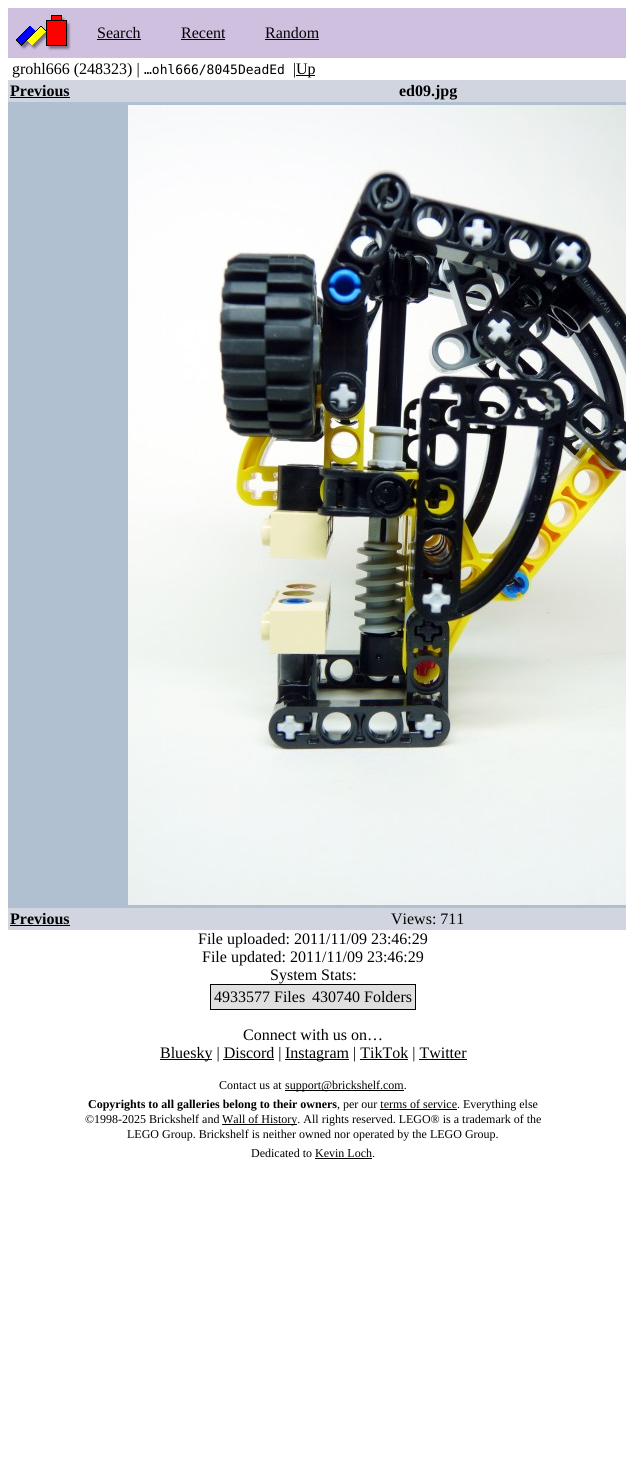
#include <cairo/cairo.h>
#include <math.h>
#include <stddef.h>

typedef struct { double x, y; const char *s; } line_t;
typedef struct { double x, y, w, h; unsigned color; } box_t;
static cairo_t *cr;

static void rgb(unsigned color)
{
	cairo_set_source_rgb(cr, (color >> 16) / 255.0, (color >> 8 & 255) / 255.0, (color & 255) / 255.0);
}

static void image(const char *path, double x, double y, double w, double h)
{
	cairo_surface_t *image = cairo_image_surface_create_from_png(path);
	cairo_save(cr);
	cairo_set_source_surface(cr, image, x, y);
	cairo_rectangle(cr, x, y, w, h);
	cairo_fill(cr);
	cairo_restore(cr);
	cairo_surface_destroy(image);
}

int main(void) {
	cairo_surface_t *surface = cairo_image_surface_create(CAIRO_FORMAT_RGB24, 626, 1474);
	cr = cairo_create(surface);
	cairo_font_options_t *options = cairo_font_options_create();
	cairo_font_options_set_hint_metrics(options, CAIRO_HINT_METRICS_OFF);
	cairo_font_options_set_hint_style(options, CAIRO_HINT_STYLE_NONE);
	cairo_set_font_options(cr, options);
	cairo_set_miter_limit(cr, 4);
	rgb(0xffffff);
	cairo_paint(cr);
	rgb(0xd0c0e0);
	cairo_rectangle(cr, 8, 8, 618, 50);
	cairo_fill(cr);
	image("img/1.png", 16, 15, 55, 36);
	{
		static const box_t items[] = {
			{97, 39, 44, 1, 0x000000},
			{181, 39, 44, 1, 0x000000},
			{265, 39, 54, 1, 0x000000},
			{296, 75, 19, 1, 0x000000},
			{8, 80, 618, 22, 0xd0d5df},
			{10, 97, 60, 1, 0x000000},
			{8, 102, 618, 806, 0xb0c0d0},
		};
		for (size_t i = 0; i < sizeof items / sizeof *items; i++) {
			rgb(items[i].color);
			cairo_rectangle(cr, items[i].x, items[i].y, items[i].w, items[i].h);
			cairo_fill(cr);
		}
	}
	image("img/2.png", 128, 105, 498, 800);
	rgb(0xd0d5df);
	cairo_rectangle(cr, 8, 908, 618, 22);
	cairo_fill(cr);
	rgb(0x000000);
	cairo_rectangle(cr, 10, 925, 60, 1);
	cairo_fill(cr);
	rgb(0xe0e0e0);
	cairo_rectangle(cr, 210.5, 984.5, 205, 25);
	cairo_fill_preserve(cr);
	rgb(0x000000);
	cairo_set_line_width(cr, 1);
	cairo_stroke(cr);
	{
		static const box_t items[] = {
			{160, 1059, 52, 1, 0x000000},
			{285, 1059, 64, 1, 0x000000},
			{223, 1059, 51, 1, 0x000000},
			{360, 1059, 48, 1, 0x000000},
			{419, 1059, 48, 1, 0x000000},
			{285, 1090, 119, 1, 0x000000},
			{380, 1109, 77, 1, 0x000000},
			{222, 1124, 75, 1, 0x000000},
			{315, 1158, 57, 1, 0x000000},
		};
		for (size_t i = 0; i < sizeof items / sizeof *items; i++) {
			rgb(items[i].color);
			cairo_rectangle(cr, items[i].x, items[i].y, items[i].w, items[i].h);
			cairo_fill(cr);
		}
	}
	cairo_select_font_face(cr, "Liberation Serif", CAIRO_FONT_SLANT_NORMAL, CAIRO_FONT_WEIGHT_NORMAL);
	cairo_set_font_size(cr, 16);
	{
		static const line_t items[] = {
			{97, 38, "Search"},
			{181, 38, "Recent"},
			{265, 38, "Random"},
			{12, 74, "grohl666 (248323) |"},
		};
		for (size_t i = 0; i < sizeof items / sizeof *items; i++) {
			cairo_move_to(cr, items[i].x, items[i].y);
			cairo_show_text(cr, items[i].s);
		}
	}
	cairo_select_font_face(cr, "DejaVu Sans Mono", CAIRO_FONT_SLANT_NORMAL, CAIRO_FONT_WEIGHT_NORMAL);
	cairo_set_font_size(cr, 13);
	cairo_move_to(cr, 144, 74);
	cairo_show_text(cr, "…ohl666/8045DeadEd");
	cairo_select_font_face(cr, "Liberation Serif", CAIRO_FONT_SLANT_NORMAL, CAIRO_FONT_WEIGHT_NORMAL);
	cairo_set_font_size(cr, 16);
	cairo_move_to(cr, 293, 74);
	cairo_show_text(cr, "|");
	cairo_move_to(cr, 296, 74);
	cairo_show_text(cr, "Up");
	cairo_select_font_face(cr, "Liberation Serif", CAIRO_FONT_SLANT_NORMAL, CAIRO_FONT_WEIGHT_BOLD);
	{
		static const line_t items[] = {
			{10, 96, "Previous"},
			{399, 96, "ed09.jpg"},
			{10, 924, "Previous"},
		};
		for (size_t i = 0; i < sizeof items / sizeof *items; i++) {
			cairo_move_to(cr, items[i].x, items[i].y);
			cairo_show_text(cr, items[i].s);
		}
	}
	cairo_select_font_face(cr, "Liberation Serif", CAIRO_FONT_SLANT_NORMAL, CAIRO_FONT_WEIGHT_NORMAL);
	{
		static const line_t items[] = {
			{391, 924, "Views: 711"},
			{198, 944, "File uploaded: 2011/11/09 23:46:29"},
			{202, 962, "File updated: 2011/11/09 23:46:29"},
			{270, 980, "System Stats:"},
			{214, 1002, "4933577 Files"},
			{312, 1002, "430740 Folders"},
			{243, 1040, "Connect with us on…"},
			{160, 1058, "Bluesky | Discord |"},
			{285, 1058, "Instagram | TikTok | Twitter"},
		};
		for (size_t i = 0; i < sizeof items / sizeof *items; i++) {
			cairo_move_to(cr, items[i].x, items[i].y);
			cairo_show_text(cr, items[i].s);
		}
	}
	cairo_set_font_size(cr, 12);
	cairo_move_to(cr, 219, 1089);
	cairo_show_text(cr, "Contact us at");
	cairo_move_to(cr, 285, 1089);
	cairo_show_text(cr, "support@brickshelf.com.");
	cairo_select_font_face(cr, "Liberation Serif", CAIRO_FONT_SLANT_NORMAL, CAIRO_FONT_WEIGHT_BOLD);
	cairo_move_to(cr, 88, 1108);
	cairo_show_text(cr, "Copyrights to all galleries belong to their owners");
	cairo_select_font_face(cr, "Liberation Serif", CAIRO_FONT_SLANT_NORMAL, CAIRO_FONT_WEIGHT_NORMAL);
	{
		static const line_t items[] = {
			{337, 1108, ", per our terms of service. Everything else"},
			{85, 1123, "©1998-2025 Brickshelf and"},
			{222, 1123, "Wall of History. All rights reserved. LEGO® is a trademark of the"},
			{127, 1138, "LEGO Group. Brickshelf is neither owned nor operated by the LEGO Group."},
			{251, 1157, "Dedicated to Kevin Loch."},
		};
		for (size_t i = 0; i < sizeof items / sizeof *items; i++) {
			cairo_move_to(cr, items[i].x, items[i].y);
			cairo_show_text(cr, items[i].s);
		}
	}
	cairo_surface_write_to_png(surface, "page.png");
	cairo_font_options_destroy(options);
	cairo_destroy(cr);
	cairo_surface_destroy(surface);
	return 0;
}
